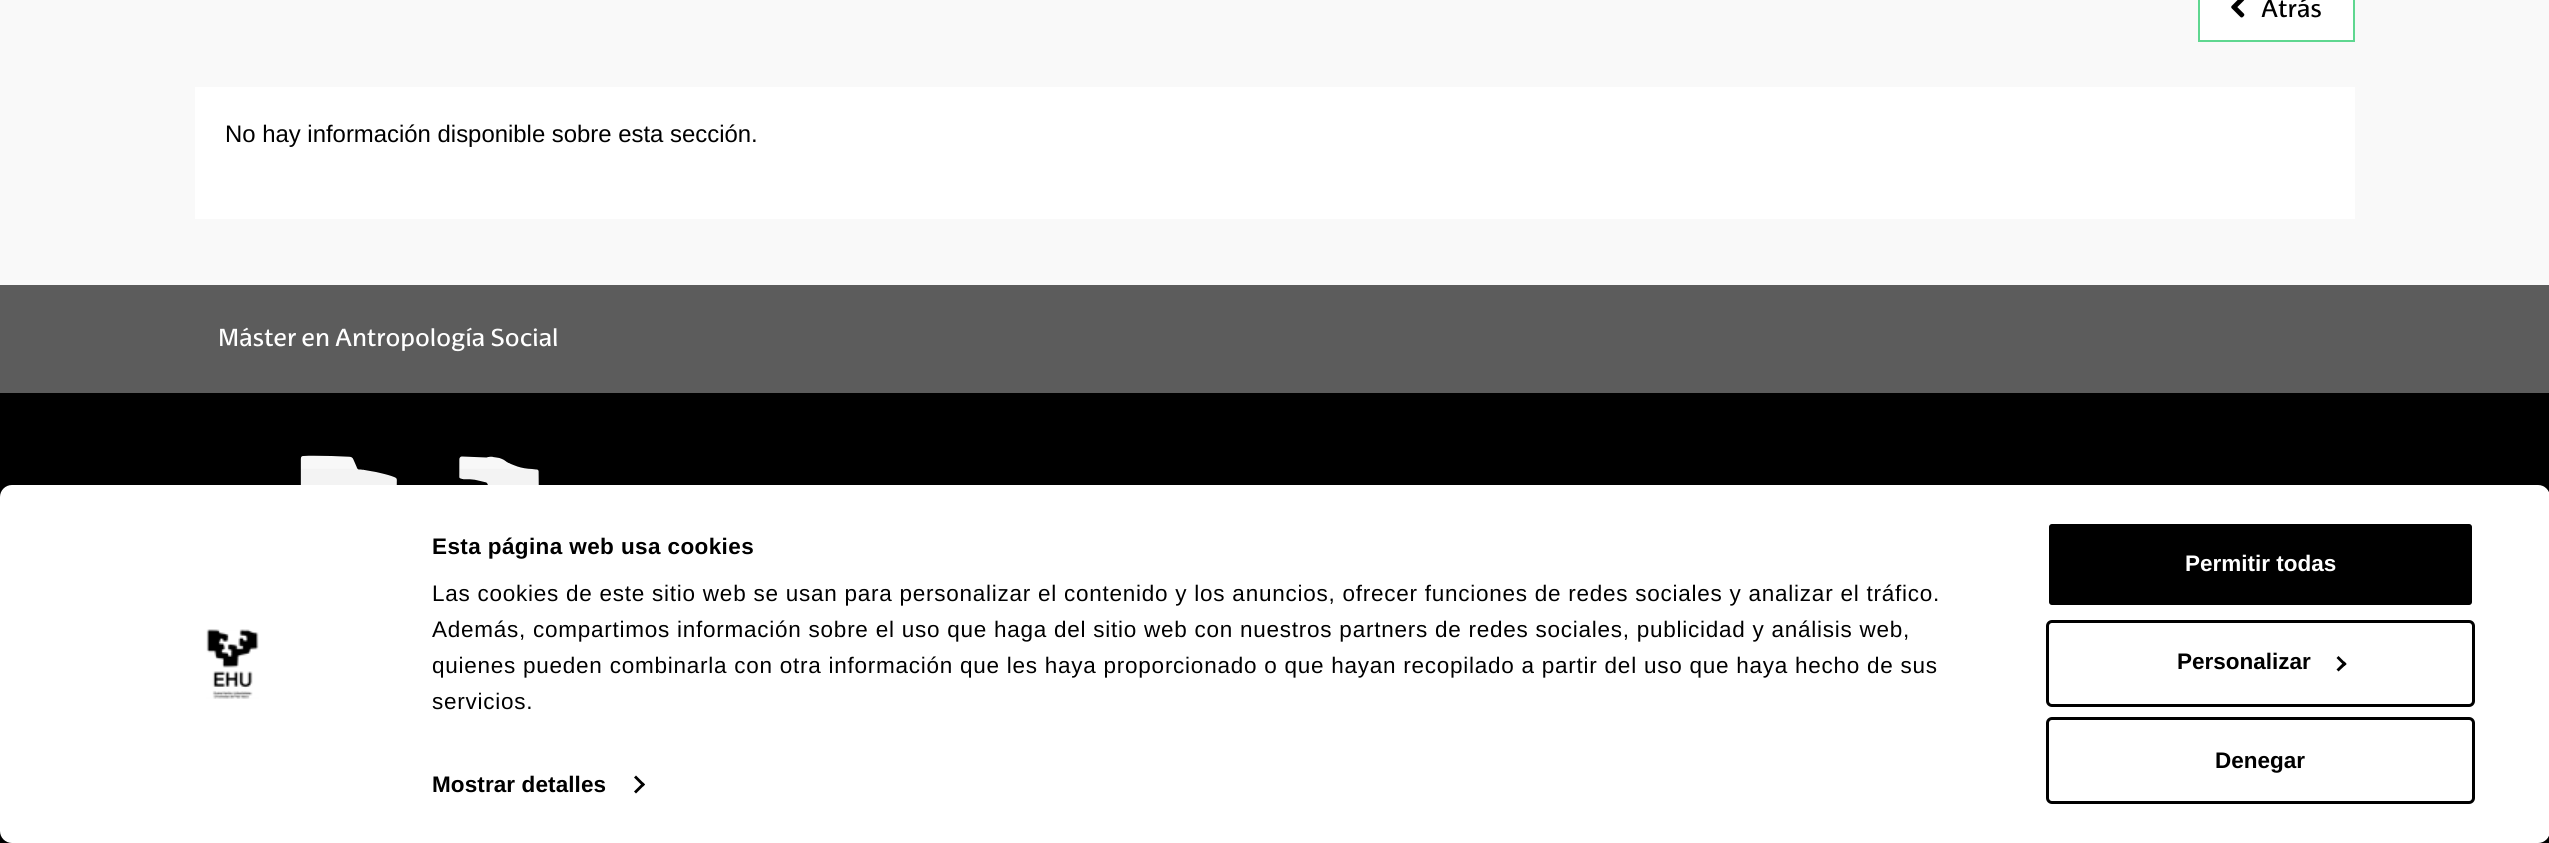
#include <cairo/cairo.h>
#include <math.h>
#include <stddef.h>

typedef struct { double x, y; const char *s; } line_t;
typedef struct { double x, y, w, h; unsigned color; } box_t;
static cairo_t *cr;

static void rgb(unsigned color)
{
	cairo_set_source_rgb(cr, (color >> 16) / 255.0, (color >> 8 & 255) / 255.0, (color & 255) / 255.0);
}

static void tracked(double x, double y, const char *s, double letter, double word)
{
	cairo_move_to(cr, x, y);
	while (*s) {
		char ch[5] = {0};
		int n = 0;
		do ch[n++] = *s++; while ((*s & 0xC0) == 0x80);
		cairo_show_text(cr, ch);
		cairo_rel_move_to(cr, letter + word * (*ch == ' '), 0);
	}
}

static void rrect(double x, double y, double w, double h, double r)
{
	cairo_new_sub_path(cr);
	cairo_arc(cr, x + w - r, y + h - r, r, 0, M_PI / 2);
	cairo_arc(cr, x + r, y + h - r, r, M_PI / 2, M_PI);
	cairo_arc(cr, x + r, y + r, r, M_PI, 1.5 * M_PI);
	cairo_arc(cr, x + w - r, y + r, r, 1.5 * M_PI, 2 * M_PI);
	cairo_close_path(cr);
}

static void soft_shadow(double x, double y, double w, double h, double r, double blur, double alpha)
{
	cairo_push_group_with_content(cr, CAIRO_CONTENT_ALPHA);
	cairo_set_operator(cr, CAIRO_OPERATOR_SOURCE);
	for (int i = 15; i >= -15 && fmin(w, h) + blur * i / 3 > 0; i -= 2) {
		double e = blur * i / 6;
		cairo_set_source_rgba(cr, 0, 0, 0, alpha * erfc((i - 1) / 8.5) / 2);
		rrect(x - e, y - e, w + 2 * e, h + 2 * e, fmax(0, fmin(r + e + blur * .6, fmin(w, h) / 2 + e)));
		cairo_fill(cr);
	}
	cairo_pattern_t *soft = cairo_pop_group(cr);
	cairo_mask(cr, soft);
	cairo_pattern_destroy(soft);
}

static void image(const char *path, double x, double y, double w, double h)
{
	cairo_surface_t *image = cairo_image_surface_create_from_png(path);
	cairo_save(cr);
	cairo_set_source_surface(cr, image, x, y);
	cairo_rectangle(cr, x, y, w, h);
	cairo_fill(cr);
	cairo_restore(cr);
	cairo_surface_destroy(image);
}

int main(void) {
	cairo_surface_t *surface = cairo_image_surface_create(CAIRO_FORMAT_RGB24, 2549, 843);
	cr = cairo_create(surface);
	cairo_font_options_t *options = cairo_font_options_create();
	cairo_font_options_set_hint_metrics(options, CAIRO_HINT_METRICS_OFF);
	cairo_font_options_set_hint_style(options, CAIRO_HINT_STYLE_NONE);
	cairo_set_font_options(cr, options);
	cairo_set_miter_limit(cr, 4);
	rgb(0xf9f9f9);
	cairo_paint(cr);
	rgb(0xffffff);
	cairo_rectangle(cr, 2199, -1, 155, 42);
	cairo_fill_preserve(cr);
	rgb(0x5fd790);
	cairo_stroke(cr);
	image("img/1.png", 2231, 0, 14, 18);
	{
		static const box_t items[] = {
			{195, 87, 2160, 132, 0xffffff},
			{0, 285, 2549, 108, 0x5c5c5c},
			{0, 393, 2549, 450, 0x000000},
		};
		for (size_t i = 0; i < sizeof items / sizeof *items; i++) {
			rgb(items[i].color);
			cairo_rectangle(cr, items[i].x, items[i].y, items[i].w, items[i].h);
			cairo_fill(cr);
		}
	}
	image("img/2.png", 300, 455, 240, 30);
	rgb(0x000000);
	soft_shadow(0, 530, 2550, 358, 12, 52.5, 0.3);
	rgb(0xffffff);
	rrect(0, 485, 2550, 358, 12);
	cairo_fill(cr);
	image("img/3.png", 206, 629, 53, 70);
	rgb(0x000000);
	cairo_new_path(cr);
	cairo_move_to(cr, 636, 775.5);
	cairo_line_to(cr, 645, 784.5);
	cairo_line_to(cr, 643, 786.5);
	cairo_line_to(cr, 634, 777.5);
	cairo_close_path(cr);
	cairo_fill(cr);
	cairo_new_path(cr);
	cairo_move_to(cr, 643, 782.5);
	cairo_line_to(cr, 645, 784.5);
	cairo_line_to(cr, 636, 793.5);
	cairo_line_to(cr, 634, 791.5);
	cairo_close_path(cr);
	cairo_fill(cr);
	rrect(2047.5, 522.5, 426, 84, 4.5);
	cairo_fill_preserve(cr);
	rgb(0xffffff);
	cairo_set_line_width(cr, 3);
	cairo_stroke(cr);
	rrect(2047.5, 621.5, 426, 84, 4.5);
	rgb(0x000000);
	cairo_stroke(cr);
	cairo_new_path(cr);
	cairo_move_to(cr, 2338.5, 656);
	cairo_line_to(cr, 2346.5, 664);
	cairo_line_to(cr, 2344.5, 666);
	cairo_line_to(cr, 2336.5, 658);
	cairo_close_path(cr);
	cairo_fill(cr);
	cairo_new_path(cr);
	cairo_move_to(cr, 2344.5, 661.5);
	cairo_line_to(cr, 2346.5, 664);
	cairo_line_to(cr, 2338.5, 671.5);
	cairo_line_to(cr, 2336.5, 669.5);
	cairo_close_path(cr);
	cairo_fill(cr);
	rrect(2047.5, 718.5, 426, 84, 4.5);
	cairo_stroke(cr);
	cairo_select_font_face(cr, "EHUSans", CAIRO_FONT_SLANT_NORMAL, CAIRO_FONT_WEIGHT_NORMAL);
	cairo_set_font_size(cr, 23.9);
	cairo_move_to(cr, 2261, 17);
	cairo_show_text(cr, "Atrás");
	cairo_select_font_face(cr, "Liberation Sans", CAIRO_FONT_SLANT_NORMAL, CAIRO_FONT_WEIGHT_NORMAL);
	cairo_move_to(cr, 225, 142);
	cairo_show_text(cr, "No hay información disponible sobre esta sección.");
	cairo_select_font_face(cr, "EHUSans", CAIRO_FONT_SLANT_NORMAL, CAIRO_FONT_WEIGHT_NORMAL);
	rgb(0xffffff);
	cairo_move_to(cr, 218, 346);
	cairo_show_text(cr, "Máster en Antropología Social");
	cairo_select_font_face(cr, "Liberation Sans", CAIRO_FONT_SLANT_NORMAL, CAIRO_FONT_WEIGHT_BOLD);
	cairo_set_font_size(cr, 22.5);
	rgb(0x000000);
	tracked(432, 554, "Esta página web usa cookies", 0.4, 0);
	cairo_select_font_face(cr, "Liberation Sans", CAIRO_FONT_SLANT_NORMAL, CAIRO_FONT_WEIGHT_NORMAL);
	{
		static const line_t items[] = {
			{432, 601, "Las cookies de este sitio web se usan para personalizar el contenido y los anuncios, ofrecer funciones de redes sociales y analizar el tráfico."},
			{432, 637, "Además, compartimos información sobre el uso que haga del sitio web con nuestros partners de redes sociales, publicidad y análisis web,"},
			{432, 673, "quienes pueden combinarla con otra información que les haya proporcionado o que hayan recopilado a partir del uso que haya hecho de sus"},
			{432, 709, "servicios."},
		};
		for (size_t i = 0; i < sizeof items / sizeof *items; i++) {
			tracked(items[i].x, items[i].y, items[i].s, 0.75, 0);
		}
	}
	cairo_select_font_face(cr, "Liberation Sans", CAIRO_FONT_SLANT_NORMAL, CAIRO_FONT_WEIGHT_BOLD);
	tracked(432, 792, "Mostrar detalles", 0.1, 0);
	rgb(0xffffff);
	cairo_move_to(cr, 2185, 571);
	cairo_show_text(cr, "Permitir todas");
	rgb(0x000000);
	cairo_move_to(cr, 2177, 669);
	cairo_show_text(cr, "Personalizar");
	cairo_move_to(cr, 2215, 768);
	cairo_show_text(cr, "Denegar");
	cairo_surface_write_to_png(surface, "page.png");
	cairo_font_options_destroy(options);
	cairo_destroy(cr);
	cairo_surface_destroy(surface);
	return 0;
}
